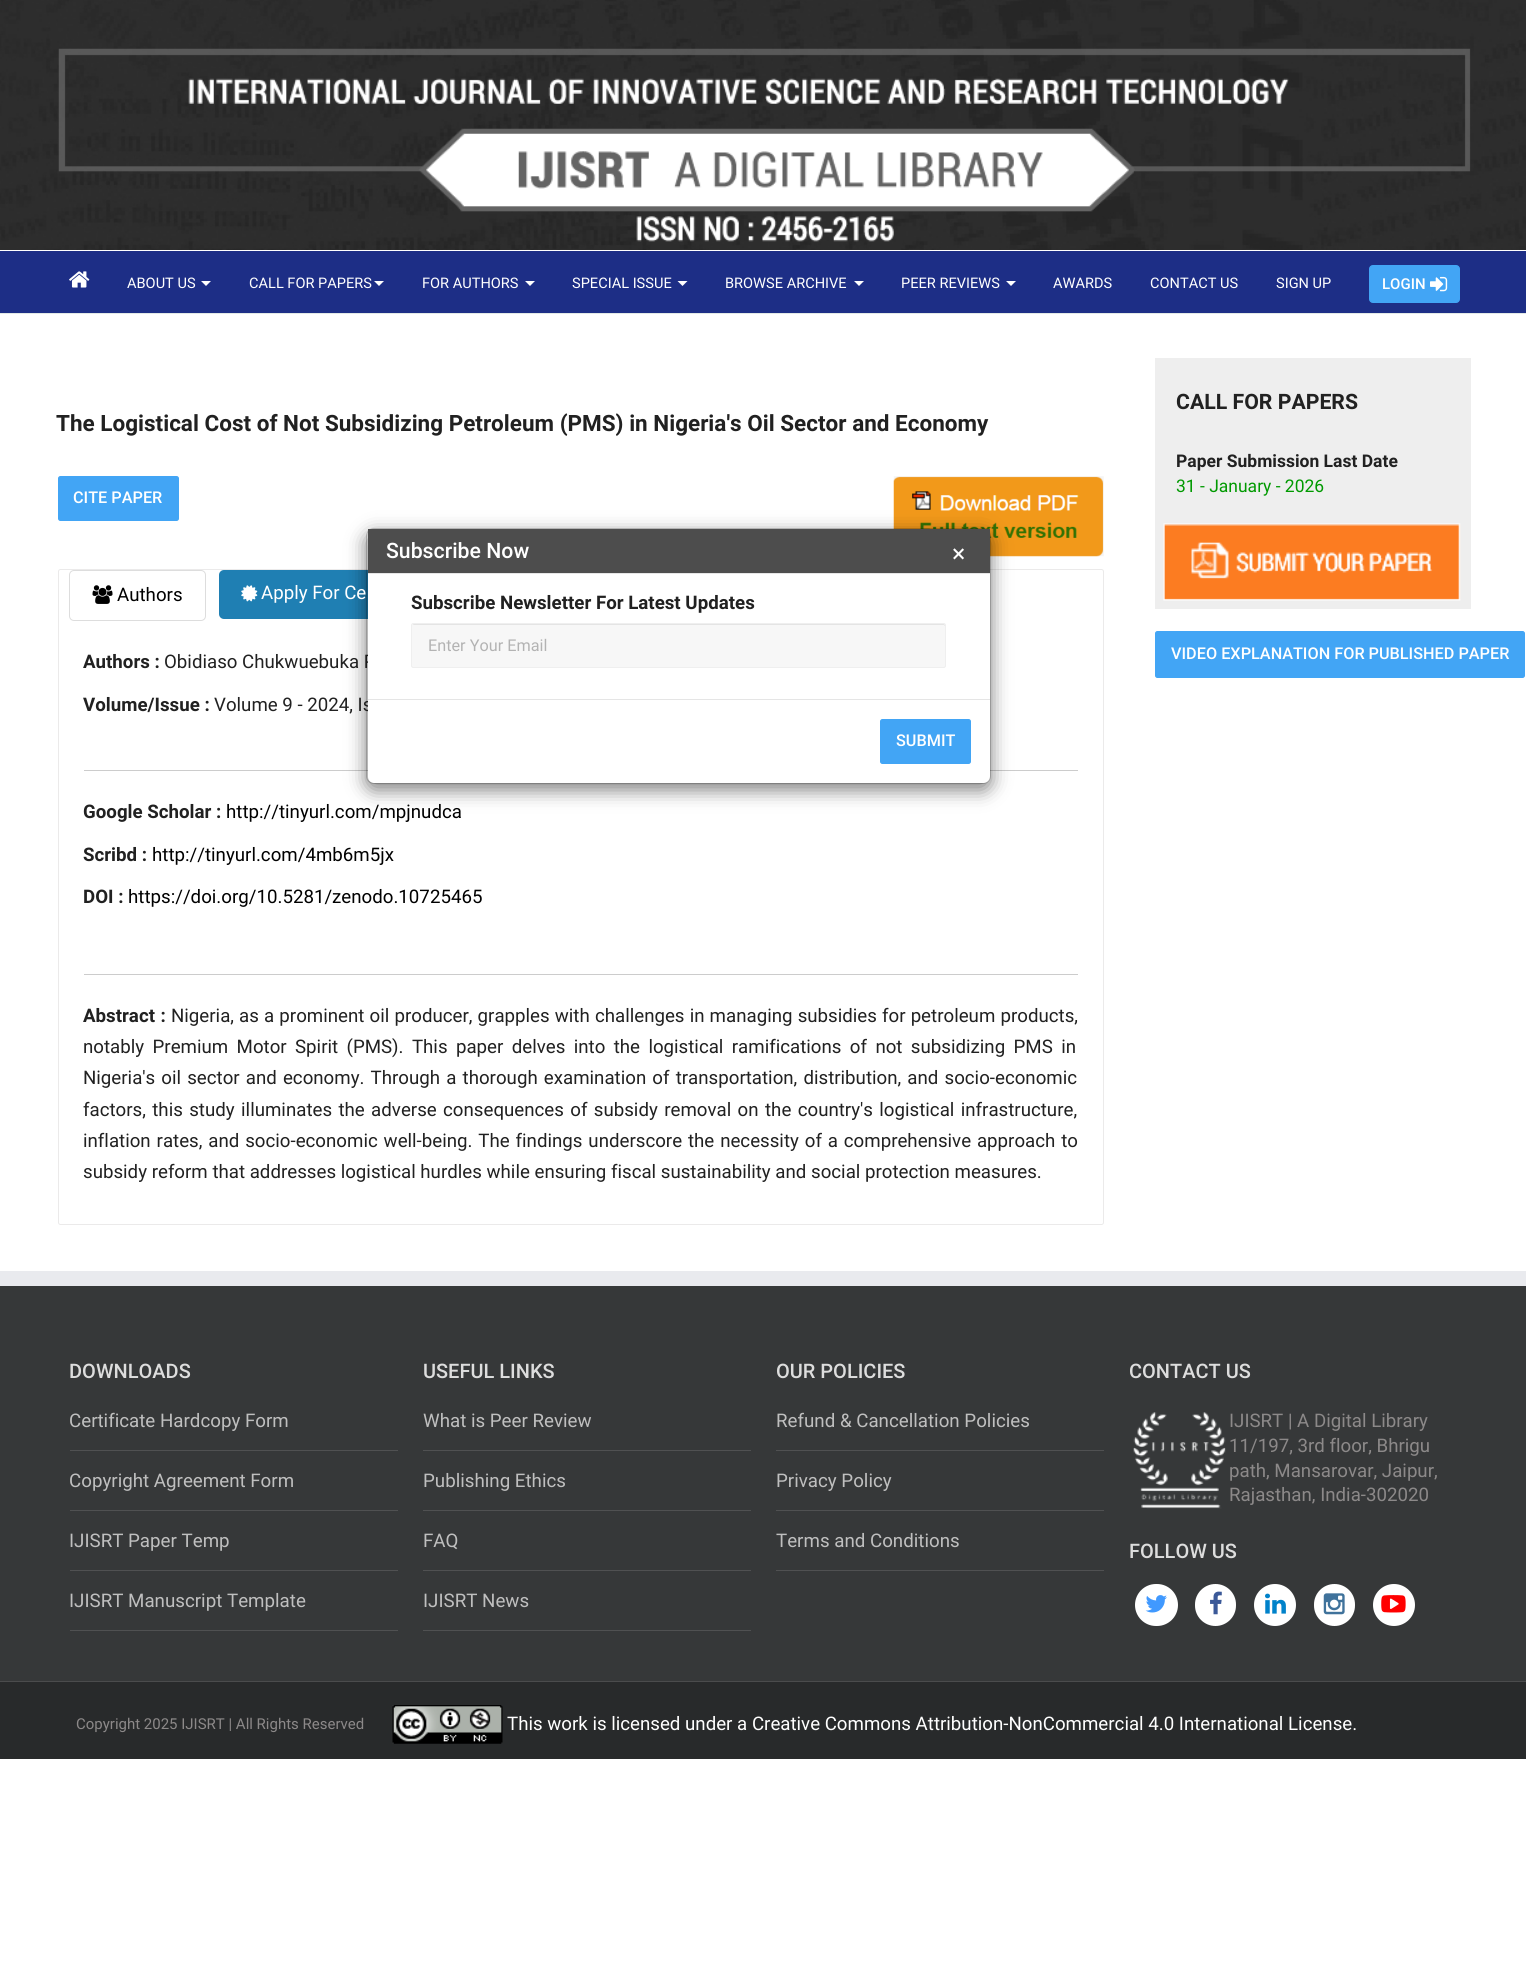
#include <cairo/cairo.h>
#include <math.h>
#include <stddef.h>

typedef struct { double x, y; const char *s; } line_t;
typedef struct { double x, y, w, h; unsigned color; } box_t;
static cairo_t *cr;

static void rgb(unsigned color)
{
	cairo_set_source_rgb(cr, (color >> 16) / 255.0, (color >> 8 & 255) / 255.0, (color & 255) / 255.0);
}

static void tracked(double x, double y, const char *s, double letter, double word)
{
	cairo_move_to(cr, x, y);
	while (*s) {
		char ch[5] = {0};
		int n = 0;
		do ch[n++] = *s++; while ((*s & 0xC0) == 0x80);
		cairo_show_text(cr, ch);
		cairo_rel_move_to(cr, letter + word * (*ch == ' '), 0);
	}
}

static void rrect(double x, double y, double w, double h, double r)
{
	cairo_new_sub_path(cr);
	cairo_arc(cr, x + w - r, y + h - r, r, 0, M_PI / 2);
	cairo_arc(cr, x + r, y + h - r, r, M_PI / 2, M_PI);
	cairo_arc(cr, x + r, y + r, r, M_PI, 1.5 * M_PI);
	cairo_arc(cr, x + w - r, y + r, r, 1.5 * M_PI, 2 * M_PI);
	cairo_close_path(cr);
}

static void soft_shadow(double x, double y, double w, double h, double r, double blur, double alpha)
{
	cairo_push_group_with_content(cr, CAIRO_CONTENT_ALPHA);
	cairo_set_operator(cr, CAIRO_OPERATOR_SOURCE);
	for (int i = 15; i >= -15 && fmin(w, h) + blur * i / 3 > 0; i -= 2) {
		double e = blur * i / 6;
		cairo_set_source_rgba(cr, 0, 0, 0, alpha * erfc((i - 1) / 8.5) / 2);
		rrect(x - e, y - e, w + 2 * e, h + 2 * e, fmax(0, fmin(r + e + blur * .6, fmin(w, h) / 2 + e)));
		cairo_fill(cr);
	}
	cairo_pattern_t *soft = cairo_pop_group(cr);
	cairo_mask(cr, soft);
	cairo_pattern_destroy(soft);
}

static void image(const char *path, double x, double y, double w, double h)
{
	cairo_surface_t *image = cairo_image_surface_create_from_png(path);
	cairo_save(cr);
	cairo_set_source_surface(cr, image, x, y);
	cairo_rectangle(cr, x, y, w, h);
	cairo_fill(cr);
	cairo_restore(cr);
	cairo_surface_destroy(image);
}

int main(void) {
	cairo_surface_t *surface = cairo_image_surface_create(CAIRO_FORMAT_RGB24, 1526, 1962);
	cr = cairo_create(surface);
	cairo_font_options_t *options = cairo_font_options_create();
	cairo_font_options_set_hint_metrics(options, CAIRO_HINT_METRICS_OFF);
	cairo_font_options_set_hint_style(options, CAIRO_HINT_STYLE_NONE);
	cairo_set_font_options(cr, options);
	cairo_set_miter_limit(cr, 4);
	rgb(0xffffff);
	cairo_paint(cr);
	image("img/1.png", 0, 0, 1526, 250);
	image("img/2.png", 58, 48, 1413, 194);
	rgb(0x1d2e86);
	cairo_rectangle(cr, 0, 251, 1526, 62);
	cairo_fill(cr);
	rgb(0xe2e9e6);
	cairo_rectangle(cr, 0, 313, 1526, 1);
	cairo_fill(cr);
	image("img/3.png", 69, 271, 21, 17);
	rgb(0xffffff);
	cairo_new_path(cr);
	cairo_move_to(cr, 201, 281);
	cairo_line_to(cr, 211, 281);
	cairo_line_to(cr, 206, 286);
	cairo_close_path(cr);
	cairo_fill(cr);
	cairo_new_path(cr);
	cairo_move_to(cr, 374, 281);
	cairo_line_to(cr, 384, 281);
	cairo_line_to(cr, 379, 286);
	cairo_close_path(cr);
	cairo_fill(cr);
	cairo_new_path(cr);
	cairo_move_to(cr, 525, 281);
	cairo_line_to(cr, 535, 281);
	cairo_line_to(cr, 530, 286);
	cairo_close_path(cr);
	cairo_fill(cr);
	cairo_new_path(cr);
	cairo_move_to(cr, 677.5, 281);
	cairo_line_to(cr, 687.5, 281);
	cairo_line_to(cr, 682.5, 286);
	cairo_close_path(cr);
	cairo_fill(cr);
	cairo_new_path(cr);
	cairo_move_to(cr, 854, 281);
	cairo_line_to(cr, 864, 281);
	cairo_line_to(cr, 859, 286);
	cairo_close_path(cr);
	cairo_fill(cr);
	cairo_new_path(cr);
	cairo_move_to(cr, 1006, 281);
	cairo_line_to(cr, 1016, 281);
	cairo_line_to(cr, 1011, 286);
	cairo_close_path(cr);
	cairo_fill(cr);
	rgb(0x42a5f5);
	rrect(1369.5, 265.5, 90, 37, 3.5);
	cairo_fill_preserve(cr);
	cairo_set_line_width(cr, 1);
	cairo_stroke(cr);
	image("img/4.png", 1430, 276, 18, 16);
	rrect(58.5, 476.5, 120, 44, 2);
	cairo_fill_preserve(cr);
	cairo_stroke(cr);
	image("img/5.png", 893, 476, 211, 81);
	rrect(58.5, 569.5, 1045, 655, 2);
	rgb(0xebeaea);
	cairo_stroke(cr);
	rrect(69.5, 570.5, 136, 50, 4.5);
	rgb(0xdddddd);
	cairo_stroke(cr);
	image("img/6.png", 92, 585, 21, 19);
	rgb(0x1f7fb3);
	rrect(219, 570, 234, 49, 5);
	cairo_fill(cr);
	image("img/7.png", 241, 585, 17, 17);
	{
		static const box_t items[] = {
			{84, 770, 994, 1, 0xcccccc},
			{84, 974, 994, 1, 0xcccccc},
			{1155, 358, 316, 251, 0xeeeeee},
		};
		for (size_t i = 0; i < sizeof items / sizeof *items; i++) {
			rgb(items[i].color);
			cairo_rectangle(cr, items[i].x, items[i].y, items[i].w, items[i].h);
			cairo_fill(cr);
		}
	}
	image("img/8.png", 1163, 523, 298, 78);
	rgb(0x42a5f5);
	rrect(1155.5, 631.5, 369, 46, 2);
	cairo_fill_preserve(cr);
	cairo_stroke(cr);
	rgb(0x000000);
	soft_shadow(366, 534, 625, 256, 8, 9.5, 0.5);
	{
		static const box_t items[] = {
			{0, 1286, 1526, 395, 0x363839},
			{0, 1271, 1526, 15, 0xe9eaee},
			{70, 1450, 328, 1, 0x505152},
			{70, 1510, 328, 1, 0x505152},
			{70, 1570, 328, 1, 0x505152},
			{70, 1630, 328, 1, 0x505152},
			{423, 1450, 328, 1, 0x505152},
			{423, 1510, 328, 1, 0x505152},
			{423, 1570, 328, 1, 0x505152},
			{423, 1630, 328, 1, 0x505152},
			{776, 1450, 328, 1, 0x505152},
			{776, 1510, 328, 1, 0x505152},
			{776, 1570, 328, 1, 0x505152},
		};
		for (size_t i = 0; i < sizeof items / sizeof *items; i++) {
			rgb(items[i].color);
			cairo_rectangle(cr, items[i].x, items[i].y, items[i].w, items[i].h);
			cairo_fill(cr);
		}
	}
	image("img/9.png", 1133, 1412, 93, 97);
	rgb(0xffffff);
	rrect(1135, 1584, 43, 42, 21);
	cairo_fill(cr);
	image("img/10.png", 1145, 1595, 22, 18);
	rrect(1195, 1584, 41, 42, 20.5);
	cairo_fill(cr);
	image("img/11.png", 1210, 1591, 12, 24);
	cairo_arc(cr, 1275, 1605, 21, 0, 2 * M_PI);
	cairo_fill(cr);
	image("img/12.png", 1265, 1593, 21, 21);
	rrect(1314, 1584, 41, 42, 20.5);
	cairo_fill(cr);
	image("img/13.png", 1323, 1593, 22, 22);
	cairo_arc(cr, 1394, 1605, 21, 0, 2 * M_PI);
	cairo_fill(cr);
	image("img/14.png", 1381, 1595, 25, 18);
	rgb(0x282a2b);
	cairo_rectangle(cr, 0, 1682, 1526, 77);
	cairo_fill(cr);
	rgb(0x4b4c4d);
	cairo_rectangle(cr, 0, 1681, 1526, 1);
	cairo_fill(cr);
	image("img/15.png", 392, 1705, 111, 39);
	cairo_select_font_face(cr, "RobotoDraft", CAIRO_FONT_SLANT_NORMAL, CAIRO_FONT_WEIGHT_NORMAL);
	cairo_set_font_size(cr, 14.6);
	rgb(0xffffff);
	{
		static const line_t items[] = {
			{127, 288, "ABOUT US"},
			{249, 288, "CALL FOR PAPERS"},
			{422, 288, "FOR AUTHORS"},
			{572, 288, "SPECIAL ISSUE"},
			{725, 288, "BROWSE ARCHIVE"},
			{901, 288, "PEER REVIEWS"},
			{1053, 288, "AWARDS"},
			{1150, 288, "CONTACT US"},
			{1276, 288, "SIGN UP"},
		};
		for (size_t i = 0; i < sizeof items / sizeof *items; i++) {
			cairo_move_to(cr, items[i].x, items[i].y);
			cairo_show_text(cr, items[i].s);
		}
	}
	cairo_select_font_face(cr, "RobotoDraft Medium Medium", CAIRO_FONT_SLANT_NORMAL, CAIRO_FONT_WEIGHT_NORMAL);
	cairo_set_font_size(cr, 15);
	cairo_move_to(cr, 1382, 289);
	cairo_show_text(cr, "LOGIN");
	cairo_select_font_face(cr, "RobotoDraft", CAIRO_FONT_SLANT_NORMAL, CAIRO_FONT_WEIGHT_BOLD);
	cairo_set_font_size(cr, 22.5);
	rgb(0x212121);
	cairo_move_to(cr, 56, 431);
	cairo_show_text(cr, "The Logistical Cost of Not Subsidizing Petroleum (PMS) in Nigeria's Oil Sector and Economy");
	cairo_select_font_face(cr, "RobotoDraft Medium Medium", CAIRO_FONT_SLANT_NORMAL, CAIRO_FONT_WEIGHT_NORMAL);
	cairo_set_font_size(cr, 16.25);
	rgb(0xffffff);
	cairo_move_to(cr, 73, 503);
	cairo_show_text(cr, "CITE PAPER");
	cairo_select_font_face(cr, "RobotoDraft", CAIRO_FONT_SLANT_NORMAL, CAIRO_FONT_WEIGHT_NORMAL);
	cairo_set_font_size(cr, 18.7);
	rgb(0x000000);
	cairo_move_to(cr, 117, 601);
	cairo_show_text(cr, "Authors");
	rgb(0xffffff);
	cairo_move_to(cr, 261, 599);
	cairo_show_text(cr, "Apply For Ce");
	cairo_select_font_face(cr, "RobotoDraft", CAIRO_FONT_SLANT_NORMAL, CAIRO_FONT_WEIGHT_BOLD);
	rgb(0x212121);
	cairo_move_to(cr, 83, 668);
	cairo_show_text(cr, "Authors :");
	cairo_select_font_face(cr, "RobotoDraft", CAIRO_FONT_SLANT_NORMAL, CAIRO_FONT_WEIGHT_NORMAL);
	cairo_move_to(cr, 164, 668);
	cairo_show_text(cr, "Obidiaso Chukwuebuka P");
	cairo_select_font_face(cr, "RobotoDraft", CAIRO_FONT_SLANT_NORMAL, CAIRO_FONT_WEIGHT_BOLD);
	cairo_move_to(cr, 83, 711);
	cairo_show_text(cr, "Volume/Issue :");
	cairo_select_font_face(cr, "RobotoDraft", CAIRO_FONT_SLANT_NORMAL, CAIRO_FONT_WEIGHT_NORMAL);
	cairo_move_to(cr, 214, 711);
	cairo_show_text(cr, "Volume 9 - 2024, Is");
	cairo_select_font_face(cr, "RobotoDraft", CAIRO_FONT_SLANT_NORMAL, CAIRO_FONT_WEIGHT_BOLD);
	cairo_move_to(cr, 83, 818);
	cairo_show_text(cr, "Google Scholar :");
	cairo_select_font_face(cr, "RobotoDraft", CAIRO_FONT_SLANT_NORMAL, CAIRO_FONT_WEIGHT_NORMAL);
	rgb(0x000000);
	cairo_move_to(cr, 226, 818);
	cairo_show_text(cr, "http://tinyurl.com/mpjnudca");
	cairo_select_font_face(cr, "RobotoDraft", CAIRO_FONT_SLANT_NORMAL, CAIRO_FONT_WEIGHT_BOLD);
	rgb(0x212121);
	cairo_move_to(cr, 83, 861);
	cairo_show_text(cr, "Scribd :");
	cairo_select_font_face(cr, "RobotoDraft", CAIRO_FONT_SLANT_NORMAL, CAIRO_FONT_WEIGHT_NORMAL);
	rgb(0x000000);
	cairo_move_to(cr, 152, 861);
	cairo_show_text(cr, "http://tinyurl.com/4mb6m5jx");
	cairo_select_font_face(cr, "RobotoDraft", CAIRO_FONT_SLANT_NORMAL, CAIRO_FONT_WEIGHT_BOLD);
	rgb(0x212121);
	cairo_move_to(cr, 83, 903);
	cairo_show_text(cr, "DOI :");
	cairo_select_font_face(cr, "RobotoDraft", CAIRO_FONT_SLANT_NORMAL, CAIRO_FONT_WEIGHT_NORMAL);
	rgb(0x000000);
	cairo_move_to(cr, 128, 903);
	cairo_show_text(cr, "https://doi.org/10.5281/zenodo.10725465");
	cairo_select_font_face(cr, "RobotoDraft", CAIRO_FONT_SLANT_NORMAL, CAIRO_FONT_WEIGHT_BOLD);
	rgb(0x212121);
	tracked(83, 1022, "Abstract :", 0, 1);
	cairo_select_font_face(cr, "RobotoDraft", CAIRO_FONT_SLANT_NORMAL, CAIRO_FONT_WEIGHT_NORMAL);
	tracked(171, 1022, "Nigeria, as a prominent oil producer, grapples with challenges in managing subsidies for petroleum products,", 0, 0.5);
	tracked(83, 1053, "notably Premium Motor Spirit (PMS). This paper delves into the logistical ramifications of not subsidizing PMS in", 0, 3.75);
	tracked(83, 1084, "Nigeria's oil sector and economy. Through a thorough examination of transportation, distribution, and socio-economic", 0, 1.5);
	tracked(83, 1116, "factors, this study illuminates the adverse consequences of subsidy removal on the country's logistical infrastructure,", 0, 1.75);
	tracked(83, 1147, "inflation rates, and socio-economic well-being. The findings underscore the necessity of a comprehensive approach to", 0, 1.25);
	cairo_move_to(cr, 83, 1178);
	cairo_show_text(cr, "subsidy reform that addresses logistical hurdles while ensuring fiscal sustainability and social protection measures.");
	cairo_select_font_face(cr, "RobotoDraft", CAIRO_FONT_SLANT_NORMAL, CAIRO_FONT_WEIGHT_BOLD);
	cairo_set_font_size(cr, 21.25);
	cairo_move_to(cr, 1176, 409);
	cairo_show_text(cr, "CALL FOR PAPERS");
	cairo_set_font_size(cr, 17.5);
	cairo_move_to(cr, 1176, 467);
	cairo_show_text(cr, "Paper Submission Last Date");
	cairo_select_font_face(cr, "RobotoDraft", CAIRO_FONT_SLANT_NORMAL, CAIRO_FONT_WEIGHT_NORMAL);
	rgb(0x009900);
	cairo_move_to(cr, 1176, 492);
	cairo_show_text(cr, "31 - January - 2026");
	cairo_select_font_face(cr, "RobotoDraft Medium Medium", CAIRO_FONT_SLANT_NORMAL, CAIRO_FONT_WEIGHT_NORMAL);
	cairo_set_font_size(cr, 16.25);
	rgb(0xffffff);
	cairo_move_to(cr, 1171, 659);
	cairo_show_text(cr, "VIDEO EXPLANATION FOR PUBLISHED PAPER");
	rrect(368, 529, 622, 254, 6);
	cairo_fill(cr);
	rrect(366.5, 528.5, 624, 255, 7.5);
	cairo_set_source_rgba(cr, 0, 0, 0, 0.2);
	cairo_stroke(cr);
	rgb(0x4d4d4d);
	cairo_rectangle(cr, 368, 529, 622, 44);
	cairo_fill(cr);
	rgb(0xe5e5e5);
	cairo_rectangle(cr, 368, 573, 622, 1);
	cairo_fill(cr);
	cairo_set_font_size(cr, 21.25);
	rgb(0xffffff);
	cairo_move_to(cr, 386, 558);
	cairo_show_text(cr, "Subscribe Now");
	cairo_select_font_face(cr, "RobotoDraft", CAIRO_FONT_SLANT_NORMAL, CAIRO_FONT_WEIGHT_NORMAL);
	cairo_set_font_size(cr, 25);
	cairo_move_to(cr, 952, 562);
	cairo_show_text(cr, "×");
	cairo_select_font_face(cr, "RobotoDraft", CAIRO_FONT_SLANT_NORMAL, CAIRO_FONT_WEIGHT_BOLD);
	cairo_set_font_size(cr, 18.7);
	rgb(0x212121);
	cairo_move_to(cr, 411, 609);
	cairo_show_text(cr, "Subscribe Newsletter For Latest Updates");
	rgb(0xf7f7f7);
	rrect(411, 623, 535, 45, 2.5);
	cairo_fill(cr);
	rgb(0xe4e4e4);
	cairo_new_path(cr);
	cairo_move_to(cr, 414, 625);
	cairo_line_to(cr, 944, 625);
	cairo_line_to(cr, 945, 626);
	cairo_line_to(cr, 945, 625);
	cairo_line_to(cr, 944, 624);
	cairo_line_to(cr, 414, 624);
	cairo_curve_to(cr, 413, 624, 413, 625, 413, 625);
	cairo_close_path(cr);
	cairo_fill(cr);
	rrect(411.5, 623.5, 534, 44, 2);
	rgb(0xefefef);
	cairo_stroke(cr);
	cairo_select_font_face(cr, "RobotoDraft", CAIRO_FONT_SLANT_NORMAL, CAIRO_FONT_WEIGHT_NORMAL);
	cairo_set_font_size(cr, 16.25);
	rgb(0xb3b3b3);
	cairo_move_to(cr, 428, 651);
	cairo_show_text(cr, "Enter Your Email");
	rgb(0xe5e5e5);
	cairo_rectangle(cr, 368, 699, 622, 1);
	cairo_fill(cr);
	rgb(0x42a5f5);
	rrect(880.5, 719.5, 90, 44, 2);
	cairo_fill_preserve(cr);
	cairo_stroke(cr);
	cairo_select_font_face(cr, "RobotoDraft Medium Medium", CAIRO_FONT_SLANT_NORMAL, CAIRO_FONT_WEIGHT_NORMAL);
	rgb(0xffffff);
	cairo_move_to(cr, 896, 746);
	cairo_show_text(cr, "SUBMIT");
	cairo_set_font_size(cr, 20);
	rgb(0xdddddd);
	cairo_move_to(cr, 69, 1378);
	cairo_show_text(cr, "DOWNLOADS");
	cairo_select_font_face(cr, "RobotoDraft", CAIRO_FONT_SLANT_NORMAL, CAIRO_FONT_WEIGHT_NORMAL);
	cairo_set_font_size(cr, 18.75);
	rgb(0xbfbfbf);
	{
		static const line_t items[] = {
			{69, 1427, "Certificate Hardcopy Form"},
			{69, 1487, "Copyright Agreement Form"},
			{69, 1547, "IJISRT Paper Temp"},
			{69, 1607, "IJISRT Manuscript Template"},
		};
		for (size_t i = 0; i < sizeof items / sizeof *items; i++) {
			cairo_move_to(cr, items[i].x, items[i].y);
			cairo_show_text(cr, items[i].s);
		}
	}
	cairo_select_font_face(cr, "RobotoDraft Medium Medium", CAIRO_FONT_SLANT_NORMAL, CAIRO_FONT_WEIGHT_NORMAL);
	cairo_set_font_size(cr, 20);
	rgb(0xdddddd);
	cairo_move_to(cr, 423, 1378);
	cairo_show_text(cr, "USEFUL LINKS");
	cairo_select_font_face(cr, "RobotoDraft", CAIRO_FONT_SLANT_NORMAL, CAIRO_FONT_WEIGHT_NORMAL);
	cairo_set_font_size(cr, 18.75);
	rgb(0xbfbfbf);
	{
		static const line_t items[] = {
			{423, 1427, "What is Peer Review"},
			{423, 1487, "Publishing Ethics"},
			{423, 1547, "FAQ"},
			{423, 1607, "IJISRT News"},
		};
		for (size_t i = 0; i < sizeof items / sizeof *items; i++) {
			cairo_move_to(cr, items[i].x, items[i].y);
			cairo_show_text(cr, items[i].s);
		}
	}
	cairo_select_font_face(cr, "RobotoDraft Medium Medium", CAIRO_FONT_SLANT_NORMAL, CAIRO_FONT_WEIGHT_NORMAL);
	cairo_set_font_size(cr, 20);
	rgb(0xdddddd);
	cairo_move_to(cr, 776, 1378);
	cairo_show_text(cr, "OUR POLICIES");
	cairo_select_font_face(cr, "RobotoDraft", CAIRO_FONT_SLANT_NORMAL, CAIRO_FONT_WEIGHT_NORMAL);
	cairo_set_font_size(cr, 18.75);
	rgb(0xbfbfbf);
	{
		static const line_t items[] = {
			{776, 1427, "Refund & Cancellation Policies"},
			{776, 1487, "Privacy Policy"},
			{776, 1547, "Terms and Conditions"},
		};
		for (size_t i = 0; i < sizeof items / sizeof *items; i++) {
			cairo_move_to(cr, items[i].x, items[i].y);
			cairo_show_text(cr, items[i].s);
		}
	}
	cairo_select_font_face(cr, "RobotoDraft Medium Medium", CAIRO_FONT_SLANT_NORMAL, CAIRO_FONT_WEIGHT_NORMAL);
	cairo_set_font_size(cr, 20);
	rgb(0xdddddd);
	cairo_move_to(cr, 1129, 1378);
	cairo_show_text(cr, "CONTACT US");
	cairo_select_font_face(cr, "RobotoDraft", CAIRO_FONT_SLANT_NORMAL, CAIRO_FONT_WEIGHT_NORMAL);
	cairo_set_font_size(cr, 18.7);
	rgb(0x8c8989);
	{
		static const line_t items[] = {
			{1229, 1427, "IJISRT | A Digital Library"},
			{1229, 1452, "11/197, 3rd floor, Bhrigu"},
			{1229, 1477, "path, Mansarovar, Jaipur,"},
			{1229, 1501, "Rajasthan, India-302020"},
		};
		for (size_t i = 0; i < sizeof items / sizeof *items; i++) {
			cairo_move_to(cr, items[i].x, items[i].y);
			cairo_show_text(cr, items[i].s);
		}
	}
	cairo_select_font_face(cr, "RobotoDraft Medium Medium", CAIRO_FONT_SLANT_NORMAL, CAIRO_FONT_WEIGHT_NORMAL);
	cairo_set_font_size(cr, 20);
	rgb(0xdddddd);
	cairo_move_to(cr, 1129, 1558);
	cairo_show_text(cr, "FOLLOW US");
	cairo_select_font_face(cr, "RobotoDraft", CAIRO_FONT_SLANT_NORMAL, CAIRO_FONT_WEIGHT_NORMAL);
	cairo_set_font_size(cr, 15);
	rgb(0x8c8989);
	cairo_move_to(cr, 76, 1729);
	cairo_show_text(cr, "Copyright 2025 IJISRT | All Rights Reserved");
	cairo_set_font_size(cr, 18.7);
	rgb(0xffffff);
	cairo_move_to(cr, 507, 1730);
	cairo_show_text(cr, "This work is licensed under a Creative Commons Attribution-NonCommercial 4.0 International License.");
	cairo_surface_write_to_png(surface, "page.png");
	cairo_font_options_destroy(options);
	cairo_destroy(cr);
	cairo_surface_destroy(surface);
	return 0;
}
